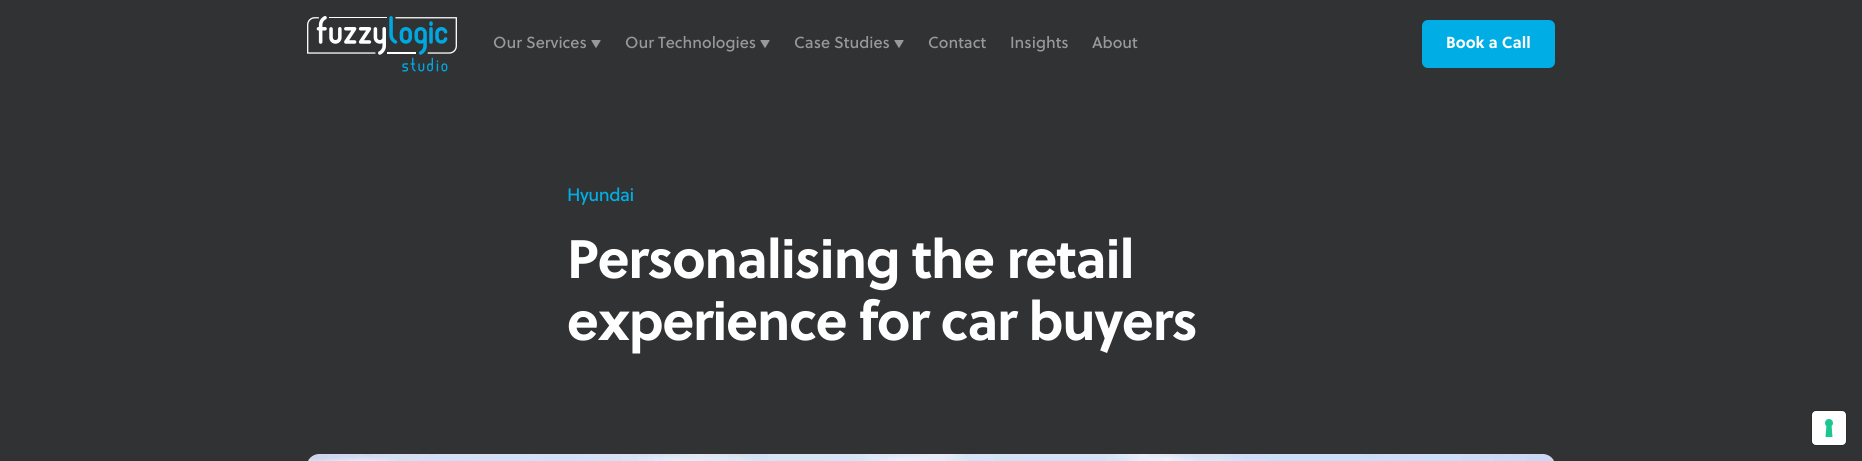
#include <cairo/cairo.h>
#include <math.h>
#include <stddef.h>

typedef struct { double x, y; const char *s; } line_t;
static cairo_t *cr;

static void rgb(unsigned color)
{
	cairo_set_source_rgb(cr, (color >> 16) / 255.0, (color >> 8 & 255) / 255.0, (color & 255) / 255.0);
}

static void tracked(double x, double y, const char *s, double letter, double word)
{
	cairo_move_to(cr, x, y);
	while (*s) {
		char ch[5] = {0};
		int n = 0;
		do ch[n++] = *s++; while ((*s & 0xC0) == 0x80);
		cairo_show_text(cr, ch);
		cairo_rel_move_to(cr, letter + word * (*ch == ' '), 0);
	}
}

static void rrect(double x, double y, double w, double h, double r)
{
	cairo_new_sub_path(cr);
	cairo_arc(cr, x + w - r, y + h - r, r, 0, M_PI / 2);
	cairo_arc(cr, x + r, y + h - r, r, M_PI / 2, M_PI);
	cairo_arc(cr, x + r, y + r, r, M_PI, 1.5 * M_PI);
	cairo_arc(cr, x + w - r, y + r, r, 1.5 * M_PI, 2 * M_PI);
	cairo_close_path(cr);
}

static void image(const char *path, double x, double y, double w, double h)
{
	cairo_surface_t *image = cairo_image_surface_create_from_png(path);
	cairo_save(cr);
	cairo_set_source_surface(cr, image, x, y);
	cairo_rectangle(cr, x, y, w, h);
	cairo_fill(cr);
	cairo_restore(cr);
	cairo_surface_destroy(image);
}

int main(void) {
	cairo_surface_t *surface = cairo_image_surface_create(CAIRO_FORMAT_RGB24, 1862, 461);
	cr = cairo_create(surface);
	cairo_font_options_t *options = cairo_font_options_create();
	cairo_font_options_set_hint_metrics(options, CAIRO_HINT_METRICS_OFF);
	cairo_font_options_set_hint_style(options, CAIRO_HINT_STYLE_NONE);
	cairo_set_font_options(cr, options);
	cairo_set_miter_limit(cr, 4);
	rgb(0x313233);
	cairo_paint(cr);
	image("img/1.png", 307, 16, 150, 56);
	image("img/2.png", 591, 40, 10, 8);
	image("img/2.png", 760, 40, 10, 8);
	image("img/2.png", 894, 40, 10, 8);
	rgb(0x00aee5);
	rrect(1422, 20, 133, 48, 6);
	cairo_fill(cr);
	image("img/3.png", 308, 454, 1246, 7);
	rrect(1811.5, 410.5, 35, 35, 4.5);
	rgb(0x2a2b2b);
	cairo_set_line_width(cr, 1);
	cairo_stroke(cr);
	rgb(0xffffff);
	rrect(1812, 411, 34, 34, 4);
	cairo_fill(cr);
	image("img/4.png", 1825, 419, 8, 18);
	cairo_select_font_face(cr, "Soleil", CAIRO_FONT_SLANT_NORMAL, CAIRO_FONT_WEIGHT_NORMAL);
	cairo_set_font_size(cr, 16);
	rgb(0x989999);
	{
		static const line_t items[] = {
			{493, 48, "Our Services"},
			{625, 48, "Our Technologies"},
			{794, 48, "Case Studies"},
			{928, 48, "Contact"},
			{1010, 48, "Insights"},
			{1092, 48, "About"},
		};
		for (size_t i = 0; i < sizeof items / sizeof *items; i++) {
			cairo_move_to(cr, items[i].x, items[i].y);
			cairo_show_text(cr, items[i].s);
		}
	}
	cairo_select_font_face(cr, "Soleil", CAIRO_FONT_SLANT_NORMAL, CAIRO_FONT_WEIGHT_BOLD);
	rgb(0xffffff);
	cairo_move_to(cr, 1446, 48);
	cairo_show_text(cr, "Book a Call");
	cairo_select_font_face(cr, "Soleil", CAIRO_FONT_SLANT_NORMAL, CAIRO_FONT_WEIGHT_NORMAL);
	cairo_set_font_size(cr, 18);
	rgb(0x00aee5);
	tracked(567, 201, "Hyundai", -0.5, 0);
	cairo_select_font_face(cr, "Soleil", CAIRO_FONT_SLANT_NORMAL, CAIRO_FONT_WEIGHT_BOLD);
	cairo_set_font_size(cr, 54);
	rgb(0xffffff);
	tracked(567, 278, "Personalising the retail", -1.1, 0);
	tracked(567, 340, "experience for car buyers", -1.1, 0);
	cairo_surface_write_to_png(surface, "page.png");
	cairo_font_options_destroy(options);
	cairo_destroy(cr);
	cairo_surface_destroy(surface);
	return 0;
}
